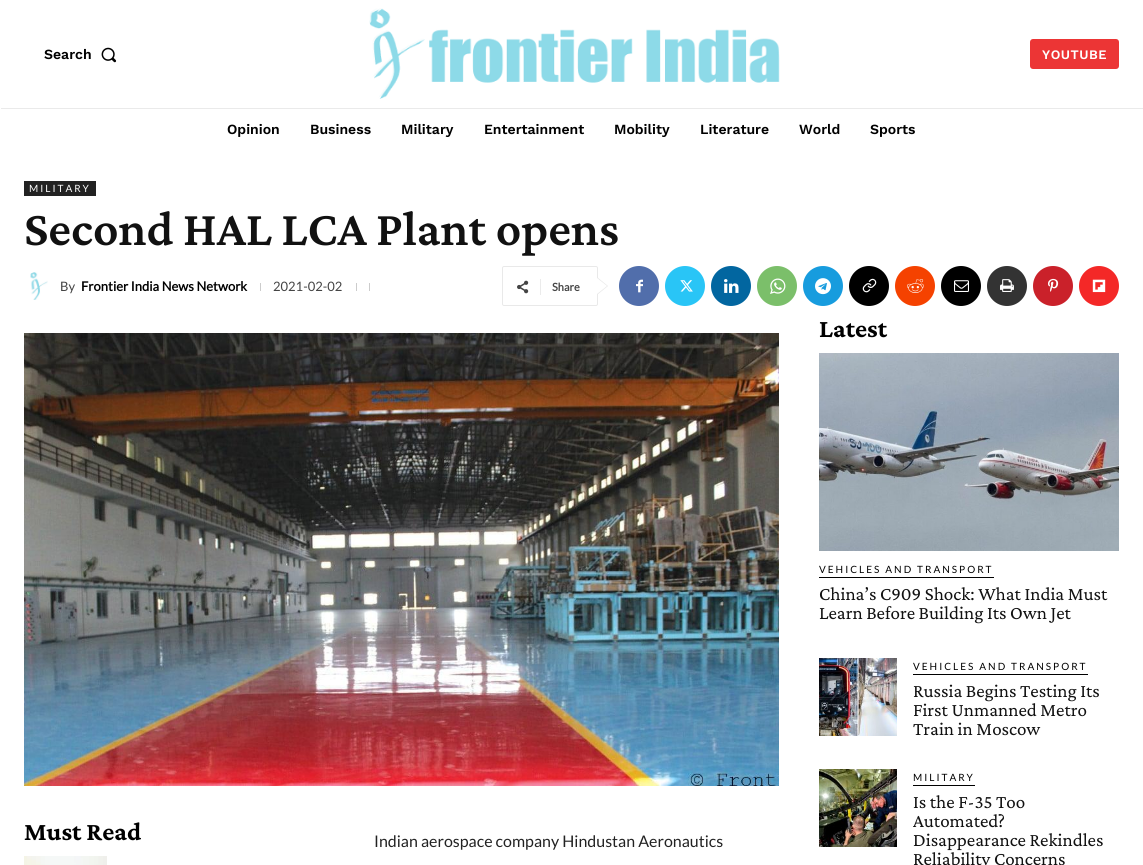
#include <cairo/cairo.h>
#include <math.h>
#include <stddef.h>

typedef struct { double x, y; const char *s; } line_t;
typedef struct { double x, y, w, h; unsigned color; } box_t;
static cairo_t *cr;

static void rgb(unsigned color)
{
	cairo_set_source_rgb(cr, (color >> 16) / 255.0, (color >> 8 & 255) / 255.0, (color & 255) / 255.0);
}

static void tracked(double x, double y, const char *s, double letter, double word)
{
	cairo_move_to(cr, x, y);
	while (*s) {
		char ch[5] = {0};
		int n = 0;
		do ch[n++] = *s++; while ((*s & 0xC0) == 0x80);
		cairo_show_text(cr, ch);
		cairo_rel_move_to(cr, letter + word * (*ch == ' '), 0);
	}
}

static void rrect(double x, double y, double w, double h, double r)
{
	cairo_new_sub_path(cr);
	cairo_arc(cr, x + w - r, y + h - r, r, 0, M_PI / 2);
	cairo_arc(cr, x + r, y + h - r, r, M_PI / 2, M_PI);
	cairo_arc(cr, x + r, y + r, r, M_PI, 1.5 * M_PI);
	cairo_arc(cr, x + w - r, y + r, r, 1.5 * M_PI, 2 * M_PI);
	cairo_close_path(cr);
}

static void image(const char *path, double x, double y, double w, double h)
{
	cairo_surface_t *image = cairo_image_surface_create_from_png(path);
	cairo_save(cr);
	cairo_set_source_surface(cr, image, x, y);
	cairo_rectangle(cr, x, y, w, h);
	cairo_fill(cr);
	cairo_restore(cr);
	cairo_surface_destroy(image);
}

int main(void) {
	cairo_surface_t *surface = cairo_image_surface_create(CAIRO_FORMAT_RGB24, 1143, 865);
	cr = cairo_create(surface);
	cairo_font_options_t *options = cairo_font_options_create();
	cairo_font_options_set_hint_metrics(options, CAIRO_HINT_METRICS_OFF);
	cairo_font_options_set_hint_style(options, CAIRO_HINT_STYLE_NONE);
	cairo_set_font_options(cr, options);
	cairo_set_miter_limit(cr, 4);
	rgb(0xffffff);
	cairo_paint(cr);
	image("img/1.png", 101, 47, 16, 16);
	image("img/2.png", 369, 8, 411, 91);
	rgb(0xec3535);
	rrect(1030, 39, 89, 30, 3);
	cairo_fill(cr);
	rgb(0xeaeaea);
	cairo_rectangle(cr, 1, 108, 1142, 1);
	cairo_fill(cr);
	rgb(0x222222);
	cairo_rectangle(cr, 24, 181, 72, 15);
	cairo_fill(cr);
	image("img/3.png", 30, 272, 18, 28);
	{
		static const box_t items[] = {
			{260, 283, 1, 8, 0xcccccc},
			{356, 283, 1, 8, 0xcccccc},
			{369, 283, 1, 8, 0xcccccc},
		};
		for (size_t i = 0; i < sizeof items / sizeof *items; i++) {
			rgb(items[i].color);
			cairo_rectangle(cr, items[i].x, items[i].y, items[i].w, items[i].h);
			cairo_fill(cr);
		}
	}
	rrect(502.5, 266.5, 95, 39, 1.5);
	rgb(0xe9e9e9);
	cairo_set_line_width(cr, 1);
	cairo_stroke(cr);
	cairo_new_path(cr);
	cairo_move_to(cr, 597, 295);
	cairo_line_to(cr, 597, 277);
	cairo_line_to(cr, 608, 286);
	cairo_close_path(cr);
	cairo_fill(cr);
	image("img/4.png", 517, 280, 12, 14);
	rgb(0xebebeb);
	cairo_rectangle(cr, 540, 279, 1, 16);
	cairo_fill(cr);
	rgb(0xffffff);
	cairo_new_path(cr);
	cairo_move_to(cr, 597, 294);
	cairo_line_to(cr, 597, 278);
	cairo_line_to(cr, 607, 286);
	cairo_close_path(cr);
	cairo_fill(cr);
	rgb(0x516eab);
	cairo_arc(cr, 639, 286, 20, 0, 2 * M_PI);
	cairo_fill(cr);
	image("img/5.png", 636, 279, 7, 14);
	rgb(0x29c5f6);
	cairo_arc(cr, 685, 286, 20, 0, 2 * M_PI);
	cairo_fill(cr);
	image("img/6.png", 680, 280, 13, 12);
	rgb(0x0266a0);
	cairo_arc(cr, 731, 286, 20, 0, 2 * M_PI);
	cairo_fill(cr);
	image("img/7.png", 724, 279, 15, 14);
	rgb(0x7bbf6a);
	cairo_arc(cr, 777, 286, 20, 0, 2 * M_PI);
	cairo_fill(cr);
	image("img/8.png", 770, 278, 16, 16);
	rgb(0x179cde);
	cairo_arc(cr, 823, 286, 20, 0, 2 * M_PI);
	cairo_fill(cr);
	image("img/9.png", 815, 278, 16, 17);
	rgb(0x000000);
	cairo_arc(cr, 869, 286, 20, 0, 2 * M_PI);
	cairo_fill(cr);
	image("img/10.png", 862, 278, 15, 15);
	rgb(0xf54200);
	cairo_arc(cr, 915, 286, 20, 0, 2 * M_PI);
	cairo_fill(cr);
	image("img/11.png", 907, 279, 17, 14);
	rgb(0x000000);
	cairo_arc(cr, 961, 286, 20, 0, 2 * M_PI);
	cairo_fill(cr);
	image("img/12.png", 954, 280, 15, 12);
	rgb(0x333333);
	cairo_arc(cr, 1007, 286, 20, 0, 2 * M_PI);
	cairo_fill(cr);
	image("img/13.png", 1000, 279, 14, 13);
	rgb(0xca212a);
	cairo_arc(cr, 1053, 286, 20, 0, 2 * M_PI);
	cairo_fill(cr);
	image("img/14.png", 1048, 278, 11, 14);
	rgb(0xf42827);
	cairo_arc(cr, 1099, 286, 20, 0, 2 * M_PI);
	cairo_fill(cr);
	image("img/15.png", 1092, 279, 14, 14);
	image("img/16.png", 24, 333, 755, 453);
	image("img/17.png", 24, 856, 83, 9);
	image("img/18.png", 819, 353, 300, 198);
	rgb(0x000000);
	cairo_rectangle(cr, 819, 577, 175, 1);
	cairo_fill(cr);
	image("img/19.png", 819, 658, 78, 78);
	cairo_rectangle(cr, 913, 674, 175, 1);
	cairo_fill(cr);
	image("img/20.png", 819, 769, 78, 78);
	cairo_rectangle(cr, 913, 785, 62, 1);
	cairo_fill(cr);
	cairo_select_font_face(cr, "Work Sans SemiBold", CAIRO_FONT_SLANT_NORMAL, CAIRO_FONT_WEIGHT_NORMAL);
	cairo_set_font_size(cr, 14);
	cairo_move_to(cr, 44, 59);
	cairo_show_text(cr, "Search");
	cairo_set_font_size(cr, 13);
	rgb(0xffffff);
	tracked(1042, 59, "YOUTUBE", 0.5, 0);
	cairo_set_font_size(cr, 14);
	rgb(0x000000);
	{
		static const line_t items[] = {
			{227, 134, "Opinion"},
			{310, 134, "Business"},
			{401, 134, "Military"},
			{484, 134, "Entertainment"},
			{614, 134, "Mobility"},
			{700, 134, "Literature"},
			{799, 134, "World"},
			{870, 134, "Sports"},
		};
		for (size_t i = 0; i < sizeof items / sizeof *items; i++) {
			cairo_move_to(cr, items[i].x, items[i].y);
			cairo_show_text(cr, items[i].s);
		}
	}
	cairo_select_font_face(cr, "Lato", CAIRO_FONT_SLANT_NORMAL, CAIRO_FONT_WEIGHT_NORMAL);
	cairo_set_font_size(cr, 10);
	rgb(0xffffff);
	tracked(29, 192, "MILITARY", 2, 0);
	cairo_select_font_face(cr, "Crimson Pro SemiBold", CAIRO_FONT_SLANT_NORMAL, CAIRO_FONT_WEIGHT_NORMAL);
	cairo_set_font_size(cr, 50);
	rgb(0x111111);
	cairo_move_to(cr, 24, 245);
	cairo_show_text(cr, "Second HAL LCA Plant opens");
	cairo_select_font_face(cr, "Lato", CAIRO_FONT_SLANT_NORMAL, CAIRO_FONT_WEIGHT_NORMAL);
	cairo_set_font_size(cr, 13);
	rgb(0x444444);
	cairo_move_to(cr, 60, 291);
	cairo_show_text(cr, "By");
	cairo_select_font_face(cr, "Lato", CAIRO_FONT_SLANT_NORMAL, CAIRO_FONT_WEIGHT_BOLD);
	rgb(0x000000);
	cairo_move_to(cr, 81, 291);
	cairo_show_text(cr, "Frontier India News Network");
	cairo_select_font_face(cr, "Lato", CAIRO_FONT_SLANT_NORMAL, CAIRO_FONT_WEIGHT_NORMAL);
	rgb(0x444444);
	cairo_move_to(cr, 273, 291);
	cairo_show_text(cr, "2021-02-02");
	cairo_select_font_face(cr, "Lato", CAIRO_FONT_SLANT_NORMAL, CAIRO_FONT_WEIGHT_BOLD);
	cairo_set_font_size(cr, 11);
	cairo_move_to(cr, 552, 291);
	cairo_show_text(cr, "Share");
	cairo_select_font_face(cr, "Crimson Pro", CAIRO_FONT_SLANT_NORMAL, CAIRO_FONT_WEIGHT_BOLD);
	cairo_set_font_size(cr, 26);
	rgb(0x000000);
	cairo_move_to(cr, 24, 840);
	cairo_show_text(cr, "Must Read");
	cairo_select_font_face(cr, "Lato", CAIRO_FONT_SLANT_NORMAL, CAIRO_FONT_WEIGHT_NORMAL);
	cairo_set_font_size(cr, 16);
	rgb(0x222222);
	cairo_move_to(cr, 374, 847);
	cairo_show_text(cr, "Indian aerospace company Hindustan Aeronautics");
	cairo_select_font_face(cr, "Crimson Pro", CAIRO_FONT_SLANT_NORMAL, CAIRO_FONT_WEIGHT_BOLD);
	cairo_set_font_size(cr, 26);
	rgb(0x000000);
	cairo_move_to(cr, 819, 337);
	cairo_show_text(cr, "Latest");
	cairo_select_font_face(cr, "Lato", CAIRO_FONT_SLANT_NORMAL, CAIRO_FONT_WEIGHT_NORMAL);
	cairo_set_font_size(cr, 10);
	tracked(819, 573, "VEHICLES AND TRANSPORT", 2, 0);
	cairo_select_font_face(cr, "Crimson Pro", CAIRO_FONT_SLANT_NORMAL, CAIRO_FONT_WEIGHT_NORMAL);
	cairo_set_font_size(cr, 19);
	rgb(0x111111);
	cairo_move_to(cr, 819, 600);
	cairo_show_text(cr, "China’s C909 Shock: What India Must");
	cairo_move_to(cr, 819, 619);
	cairo_show_text(cr, "Learn Before Building Its Own Jet");
	cairo_select_font_face(cr, "Lato", CAIRO_FONT_SLANT_NORMAL, CAIRO_FONT_WEIGHT_NORMAL);
	cairo_set_font_size(cr, 10);
	rgb(0x000000);
	tracked(913, 670, "VEHICLES AND TRANSPORT", 2, 0);
	cairo_select_font_face(cr, "Crimson Pro", CAIRO_FONT_SLANT_NORMAL, CAIRO_FONT_WEIGHT_NORMAL);
	cairo_set_font_size(cr, 19);
	rgb(0x111111);
	{
		static const line_t items[] = {
			{913, 697, "Russia Begins Testing Its"},
			{913, 716, "First Unmanned Metro"},
			{913, 735, "Train in Moscow"},
		};
		for (size_t i = 0; i < sizeof items / sizeof *items; i++) {
			cairo_move_to(cr, items[i].x, items[i].y);
			cairo_show_text(cr, items[i].s);
		}
	}
	cairo_select_font_face(cr, "Lato", CAIRO_FONT_SLANT_NORMAL, CAIRO_FONT_WEIGHT_NORMAL);
	cairo_set_font_size(cr, 10);
	rgb(0x000000);
	tracked(913, 781, "MILITARY", 2, 0);
	cairo_select_font_face(cr, "Crimson Pro", CAIRO_FONT_SLANT_NORMAL, CAIRO_FONT_WEIGHT_NORMAL);
	cairo_set_font_size(cr, 19);
	rgb(0x111111);
	{
		static const line_t items[] = {
			{913, 808, "Is the F-35 Too"},
			{913, 827, "Automated?"},
			{913, 846, "Disappearance Rekindles"},
			{913, 865, "Reliability Concerns"},
		};
		for (size_t i = 0; i < sizeof items / sizeof *items; i++) {
			cairo_move_to(cr, items[i].x, items[i].y);
			cairo_show_text(cr, items[i].s);
		}
	}
	cairo_surface_write_to_png(surface, "page.png");
	cairo_font_options_destroy(options);
	cairo_destroy(cr);
	cairo_surface_destroy(surface);
	return 0;
}
